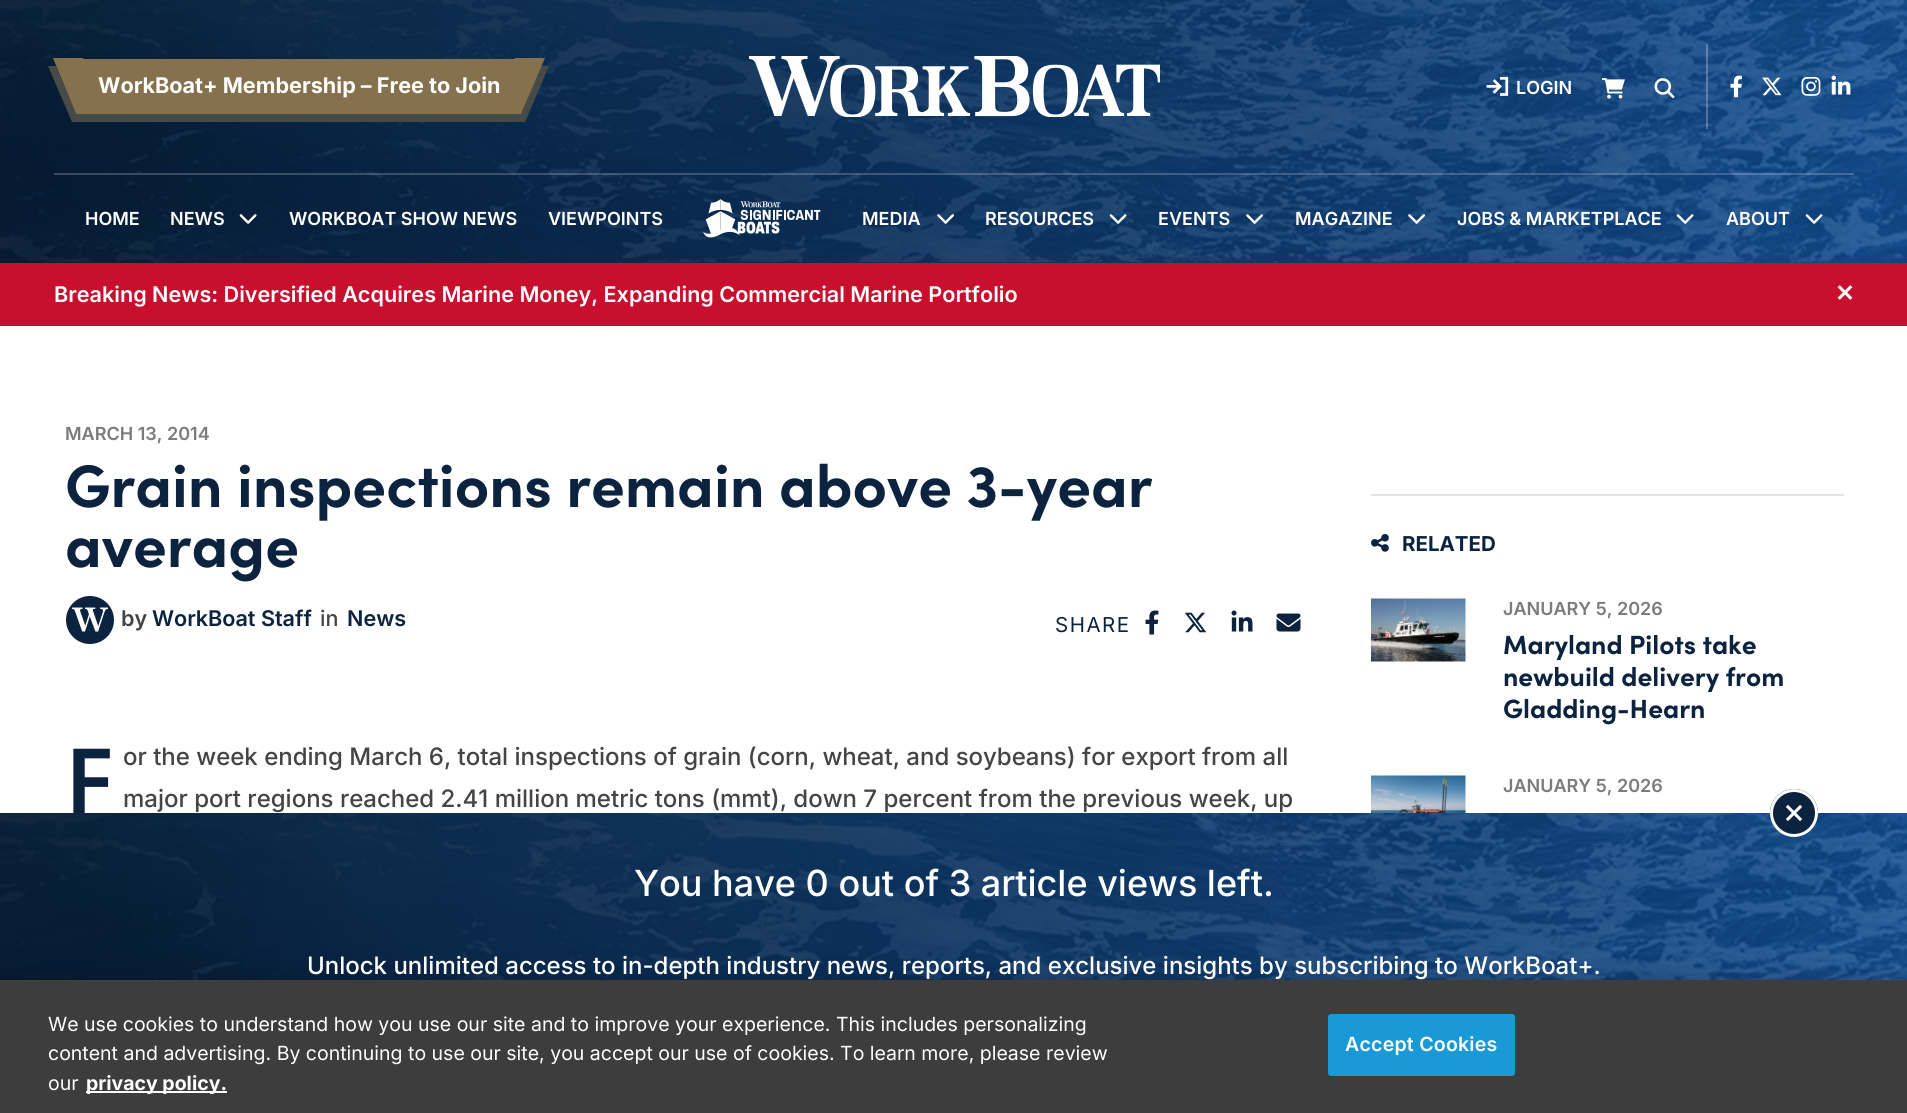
#include <cairo/cairo.h>
#include <math.h>
#include <stddef.h>

typedef struct { double x, y; const char *s; } line_t;
static cairo_t *cr;

static void rgb(unsigned color)
{
	cairo_set_source_rgb(cr, (color >> 16) / 255.0, (color >> 8 & 255) / 255.0, (color & 255) / 255.0);
}

static void tracked(double x, double y, const char *s, double letter, double word)
{
	cairo_move_to(cr, x, y);
	while (*s) {
		char ch[5] = {0};
		int n = 0;
		do ch[n++] = *s++; while ((*s & 0xC0) == 0x80);
		cairo_show_text(cr, ch);
		cairo_rel_move_to(cr, letter + word * (*ch == ' '), 0);
	}
}

static void rrect(double x, double y, double w, double h, double r)
{
	cairo_new_sub_path(cr);
	cairo_arc(cr, x + w - r, y + h - r, r, 0, M_PI / 2);
	cairo_arc(cr, x + r, y + h - r, r, M_PI / 2, M_PI);
	cairo_arc(cr, x + r, y + r, r, M_PI, 1.5 * M_PI);
	cairo_arc(cr, x + w - r, y + r, r, 1.5 * M_PI, 2 * M_PI);
	cairo_close_path(cr);
}

static void soft_shadow(double x, double y, double w, double h, double r, double blur, double alpha)
{
	cairo_push_group_with_content(cr, CAIRO_CONTENT_ALPHA);
	cairo_set_operator(cr, CAIRO_OPERATOR_SOURCE);
	for (int i = 15; i >= -15 && fmin(w, h) + blur * i / 3 > 0; i -= 2) {
		double e = blur * i / 6;
		cairo_set_source_rgba(cr, 0, 0, 0, alpha * erfc((i - 1) / 8.5) / 2);
		rrect(x - e, y - e, w + 2 * e, h + 2 * e, fmax(0, fmin(r + e + blur * .6, fmin(w, h) / 2 + e)));
		cairo_fill(cr);
	}
	cairo_pattern_t *soft = cairo_pop_group(cr);
	cairo_mask(cr, soft);
	cairo_pattern_destroy(soft);
}

static void image(const char *path, double x, double y, double w, double h)
{
	cairo_surface_t *image = cairo_image_surface_create_from_png(path);
	cairo_save(cr);
	cairo_set_source_surface(cr, image, x, y);
	cairo_rectangle(cr, x, y, w, h);
	cairo_fill(cr);
	cairo_restore(cr);
	cairo_surface_destroy(image);
}

int main(void) {
	cairo_surface_t *surface = cairo_image_surface_create(CAIRO_FORMAT_RGB24, 1907, 1113);
	cr = cairo_create(surface);
	cairo_font_options_t *options = cairo_font_options_create();
	cairo_font_options_set_hint_metrics(options, CAIRO_HINT_METRICS_OFF);
	cairo_font_options_set_hint_style(options, CAIRO_HINT_STYLE_NONE);
	cairo_set_font_options(cr, options);
	cairo_set_miter_limit(cr, 4);
	cairo_pattern_t *gradient;
	rgb(0xffffff);
	cairo_paint(cr);
	rgb(0x104683);
	cairo_rectangle(cr, 0, 262, 1907, 1);
	cairo_fill(cr);
	image("img/1.png", 0, 0, 1907, 263);
	gradient = cairo_pattern_create_linear(-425, 179, 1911, 98);
	cairo_pattern_add_color_stop_rgba(gradient, 0, 0, 0, 0, 0.75);
	cairo_pattern_add_color_stop_rgba(gradient, 1, 0, 0, 0, 0);
	cairo_set_source(cr, gradient);
	cairo_pattern_destroy(gradient);
	cairo_rectangle(cr, 0, 0, 1849, 263);
	cairo_fill(cr);
	rgb(0x474b48);
	cairo_new_path(cr);
	cairo_move_to(cr, 90, 114);
	cairo_line_to(cr, 90, 122);
	cairo_line_to(cr, 522, 122);
	cairo_line_to(cr, 522, 66);
	cairo_line_to(cr, 514, 66);
	cairo_line_to(cr, 514, 114);
	cairo_close_path(cr);
	cairo_fill(cr);
	rgb(0x85714d);
	cairo_rectangle(cr, 83, 59, 432, 55);
	cairo_fill(cr);
	image("img/2.png", 749, 56, 411, 61);
	image("img/3.png", 1486, 76, 23, 20);
	image("img/4.png", 1602, 78, 23, 21);
	image("img/5.png", 1654, 78, 21, 21);
	cairo_set_source_rgba(cr, 1, 1, 1, 0.25);
	cairo_rectangle(cr, 1706, 44, 2, 85);
	cairo_fill(cr);
	image("img/6.png", 1730, 75, 13, 23);
	image("img/7.png", 1762, 77, 20, 19);
	image("img/8.png", 1801, 76, 20, 20);
	image("img/9.png", 1831, 75, 20, 20);
	cairo_set_source_rgba(cr, 1, 1, 1, 0.2);
	cairo_rectangle(cr, 54, 173, 1800, 2);
	cairo_fill(cr);
	image("img/10.png", 239, 214, 18, 10);
	image("img/11.png", 703, 199, 118, 39);
	image("img/12.png", 937, 214, 17, 10);
	image("img/13.png", 1109, 214, 18, 10);
	image("img/14.png", 1246, 214, 17, 10);
	image("img/15.png", 1408, 214, 17, 10);
	image("img/16.png", 1676, 214, 18, 10);
	image("img/17.png", 1805, 214, 18, 10);
	rgb(0xc8102e);
	cairo_rectangle(cr, 0, 263, 1907, 63);
	cairo_fill(cr);
	image("img/18.png", 1837, 285, 16, 15);
	image("img/19.png", 66, 596, 48, 48);
	image("img/20.png", 1145, 610, 14, 25);
	image("img/21.png", 1184, 612, 23, 21);
	image("img/22.png", 1231, 610, 22, 22);
	image("img/23.png", 1276, 613, 25, 19);
	rgb(0xe4e4e4);
	cairo_rectangle(cr, 1371, 494, 473, 2);
	cairo_fill(cr);
	image("img/24.png", 1371, 534, 18, 18);
	image("img/25.png", 1371, 598, 95, 64);
	image("img/26.png", 1371, 775, 95, 38);
	image("img/27.png", 0, 813, 1907, 167);
	rgb(0x0c2340);
	cairo_arc(cr, 1794, 813, 24, 0, 2 * M_PI);
	cairo_fill(cr);
	image("img/28.png", 1770, 789, 48, 48);
	rgb(0x000000);
	soft_shadow(0, 980, 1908, 133, 0, 13.5, 0.2);
	rgb(0x3d3d3d);
	cairo_rectangle(cr, 0, 980, 1907, 133);
	cairo_fill(cr);
	rgb(0xffffff);
	cairo_rectangle(cr, 86, 1091, 141, 2);
	cairo_fill(cr);
	rgb(0x199ad6);
	rrect(1329, 1015, 185, 60, 2);
	cairo_fill_preserve(cr);
	cairo_stroke(cr);
	cairo_select_font_face(cr, "Inter", CAIRO_FONT_SLANT_NORMAL, CAIRO_FONT_WEIGHT_BOLD);
	cairo_set_font_size(cr, 21.6);
	rgb(0xffffff);
	cairo_move_to(cr, 98, 93);
	cairo_show_text(cr, "WorkBoat+ Membership – Free to Join");
	rgb(0x474b48);
	cairo_new_path(cr);
	cairo_move_to(cr, 48, 66);
	cairo_line_to(cr, 72, 122);
	cairo_line_to(cr, 102, 122);
	cairo_line_to(cr, 99, 114);
	cairo_line_to(cr, 76, 114);
	cairo_line_to(cr, 56, 66);
	cairo_close_path(cr);
	cairo_fill(cr);
	rgb(0x85714d);
	cairo_new_path(cr);
	cairo_move_to(cr, 53, 58);
	cairo_line_to(cr, 83, 58);
	cairo_line_to(cr, 106, 114);
	cairo_line_to(cr, 76, 114);
	cairo_close_path(cr);
	cairo_fill(cr);
	rgb(0x474b48);
	cairo_new_path(cr);
	cairo_move_to(cr, 498, 114);
	cairo_line_to(cr, 495, 122);
	cairo_line_to(cr, 525, 122);
	cairo_line_to(cr, 549, 66);
	cairo_line_to(cr, 541, 66);
	cairo_line_to(cr, 521, 114);
	cairo_close_path(cr);
	cairo_fill(cr);
	rgb(0x85714d);
	cairo_new_path(cr);
	cairo_move_to(cr, 515, 58);
	cairo_line_to(cr, 545, 58);
	cairo_line_to(cr, 521, 114);
	cairo_line_to(cr, 491, 114);
	cairo_close_path(cr);
	cairo_fill(cr);
	cairo_select_font_face(cr, "Inter SemiBold", CAIRO_FONT_SLANT_NORMAL, CAIRO_FONT_WEIGHT_NORMAL);
	cairo_set_font_size(cr, 18);
	rgb(0xffffff);
	{
		static const line_t items[] = {
			{1516, 94, "LOGIN"},
			{85, 225, "HOME"},
			{170, 225, "NEWS"},
			{289, 225, "WORKBOAT SHOW NEWS"},
			{548, 225, "VIEWPOINTS"},
			{862, 225, "MEDIA"},
			{985, 225, "RESOURCES"},
			{1158, 225, "EVENTS"},
			{1295, 225, "MAGAZINE"},
			{1457, 225, "JOBS & MARKETPLACE"},
			{1726, 225, "ABOUT"},
		};
		for (size_t i = 0; i < sizeof items / sizeof *items; i++) {
			cairo_move_to(cr, items[i].x, items[i].y);
			cairo_show_text(cr, items[i].s);
		}
	}
	cairo_set_font_size(cr, 21.6);
	cairo_move_to(cr, 54, 302);
	cairo_show_text(cr, "Breaking News: Diversified Acquires Marine Money, Expanding Commercial Marine Portfolio");
	cairo_set_font_size(cr, 18);
	rgb(0x7b7b7b);
	cairo_move_to(cr, 65, 440);
	cairo_show_text(cr, "MARCH 13, 2014");
	cairo_select_font_face(cr, "Sofia", CAIRO_FONT_SLANT_NORMAL, CAIRO_FONT_WEIGHT_BOLD);
	cairo_set_font_size(cr, 60);
	rgb(0x0c2340);
	cairo_move_to(cr, 65, 507);
	cairo_show_text(cr, "Grain inspections remain above 3-year");
	cairo_move_to(cr, 65, 567);
	cairo_show_text(cr, "average");
	cairo_select_font_face(cr, "Inter SemiBold", CAIRO_FONT_SLANT_NORMAL, CAIRO_FONT_WEIGHT_NORMAL);
	cairo_set_font_size(cr, 21.6);
	rgb(0x444444);
	cairo_move_to(cr, 121, 626);
	cairo_show_text(cr, "by");
	rgb(0x0c2340);
	cairo_move_to(cr, 152, 626);
	cairo_show_text(cr, "WorkBoat Staff");
	cairo_select_font_face(cr, "Inter Medium", CAIRO_FONT_SLANT_NORMAL, CAIRO_FONT_WEIGHT_NORMAL);
	rgb(0x444444);
	cairo_move_to(cr, 320, 626);
	cairo_show_text(cr, "in");
	cairo_select_font_face(cr, "Inter SemiBold", CAIRO_FONT_SLANT_NORMAL, CAIRO_FONT_WEIGHT_NORMAL);
	rgb(0x0c2340);
	cairo_move_to(cr, 347, 626);
	cairo_show_text(cr, "News");
	cairo_select_font_face(cr, "Inter", CAIRO_FONT_SLANT_NORMAL, CAIRO_FONT_WEIGHT_NORMAL);
	cairo_set_font_size(cr, 20.5);
	tracked(1055, 632, "SHARE", 1.5, 0);
	cairo_select_font_face(cr, "Noto Sans SemiBold", CAIRO_FONT_SLANT_NORMAL, CAIRO_FONT_WEIGHT_NORMAL);
	cairo_set_font_size(cr, 90);
	cairo_move_to(cr, 65, 813);
	cairo_show_text(cr, "F");
	cairo_select_font_face(cr, "Inter Medium", CAIRO_FONT_SLANT_NORMAL, CAIRO_FONT_WEIGHT_NORMAL);
	cairo_set_font_size(cr, 24);
	rgb(0x444444);
	cairo_move_to(cr, 123, 765);
	cairo_show_text(cr, "or the week ending March 6, total inspections of grain (corn, wheat, and soybeans) for export from all");
	cairo_move_to(cr, 123, 807);
	cairo_show_text(cr, "major port regions reached 2.41 million metric tons (mmt), down 7 percent from the previous week, up");
	cairo_select_font_face(cr, "Inter", CAIRO_FONT_SLANT_NORMAL, CAIRO_FONT_WEIGHT_BOLD);
	cairo_set_font_size(cr, 20.5);
	rgb(0x0c2340);
	cairo_move_to(cr, 1402, 551);
	cairo_show_text(cr, "RELATED");
	cairo_select_font_face(cr, "Inter SemiBold", CAIRO_FONT_SLANT_NORMAL, CAIRO_FONT_WEIGHT_NORMAL);
	cairo_set_font_size(cr, 18);
	rgb(0x7b7b7b);
	cairo_move_to(cr, 1503, 615);
	cairo_show_text(cr, "JANUARY 5, 2026");
	cairo_select_font_face(cr, "Sofia", CAIRO_FONT_SLANT_NORMAL, CAIRO_FONT_WEIGHT_BOLD);
	cairo_set_font_size(cr, 26.4);
	rgb(0x0c2340);
	{
		static const line_t items[] = {
			{1503, 654, "Maryland Pilots take"},
			{1503, 686, "newbuild delivery from"},
			{1503, 718, "Gladding-Hearn"},
		};
		for (size_t i = 0; i < sizeof items / sizeof *items; i++) {
			cairo_move_to(cr, items[i].x, items[i].y);
			cairo_show_text(cr, items[i].s);
		}
	}
	cairo_select_font_face(cr, "Inter SemiBold", CAIRO_FONT_SLANT_NORMAL, CAIRO_FONT_WEIGHT_NORMAL);
	cairo_set_font_size(cr, 18);
	rgb(0x7b7b7b);
	cairo_move_to(cr, 1503, 792);
	cairo_show_text(cr, "JANUARY 5, 2026");
	cairo_select_font_face(cr, "Inter Medium", CAIRO_FONT_SLANT_NORMAL, CAIRO_FONT_WEIGHT_NORMAL);
	cairo_set_font_size(cr, 36);
	rgb(0xffffff);
	cairo_move_to(cr, 634, 896);
	cairo_show_text(cr, "You have 0 out of 3 article views left.");
	cairo_set_font_size(cr, 24);
	cairo_move_to(cr, 307, 974);
	cairo_show_text(cr, "Unlock unlimited access to in-depth industry news, reports, and exclusive insights by subscribing to WorkBoat+.");
	cairo_select_font_face(cr, "Inter", CAIRO_FONT_SLANT_NORMAL, CAIRO_FONT_WEIGHT_NORMAL);
	cairo_set_font_size(cr, 19.5);
	{
		static const line_t items[] = {
			{48, 1031, "We use cookies to understand how you use our site and to improve your experience. This includes personalizing"},
			{48, 1060, "content and advertising. By continuing to use our site, you accept our use of cookies. To learn more, please review"},
			{48, 1090, "our"},
		};
		for (size_t i = 0; i < sizeof items / sizeof *items; i++) {
			cairo_move_to(cr, items[i].x, items[i].y);
			cairo_show_text(cr, items[i].s);
		}
	}
	cairo_select_font_face(cr, "Inter", CAIRO_FONT_SLANT_NORMAL, CAIRO_FONT_WEIGHT_BOLD);
	cairo_move_to(cr, 86, 1090);
	cairo_show_text(cr, "privacy policy.");
	cairo_select_font_face(cr, "Inter SemiBold", CAIRO_FONT_SLANT_NORMAL, CAIRO_FONT_WEIGHT_NORMAL);
	tracked(1345, 1051, "Accept Cookies", 0.25, 0);
	cairo_surface_write_to_png(surface, "page.png");
	cairo_font_options_destroy(options);
	cairo_destroy(cr);
	cairo_surface_destroy(surface);
	return 0;
}
